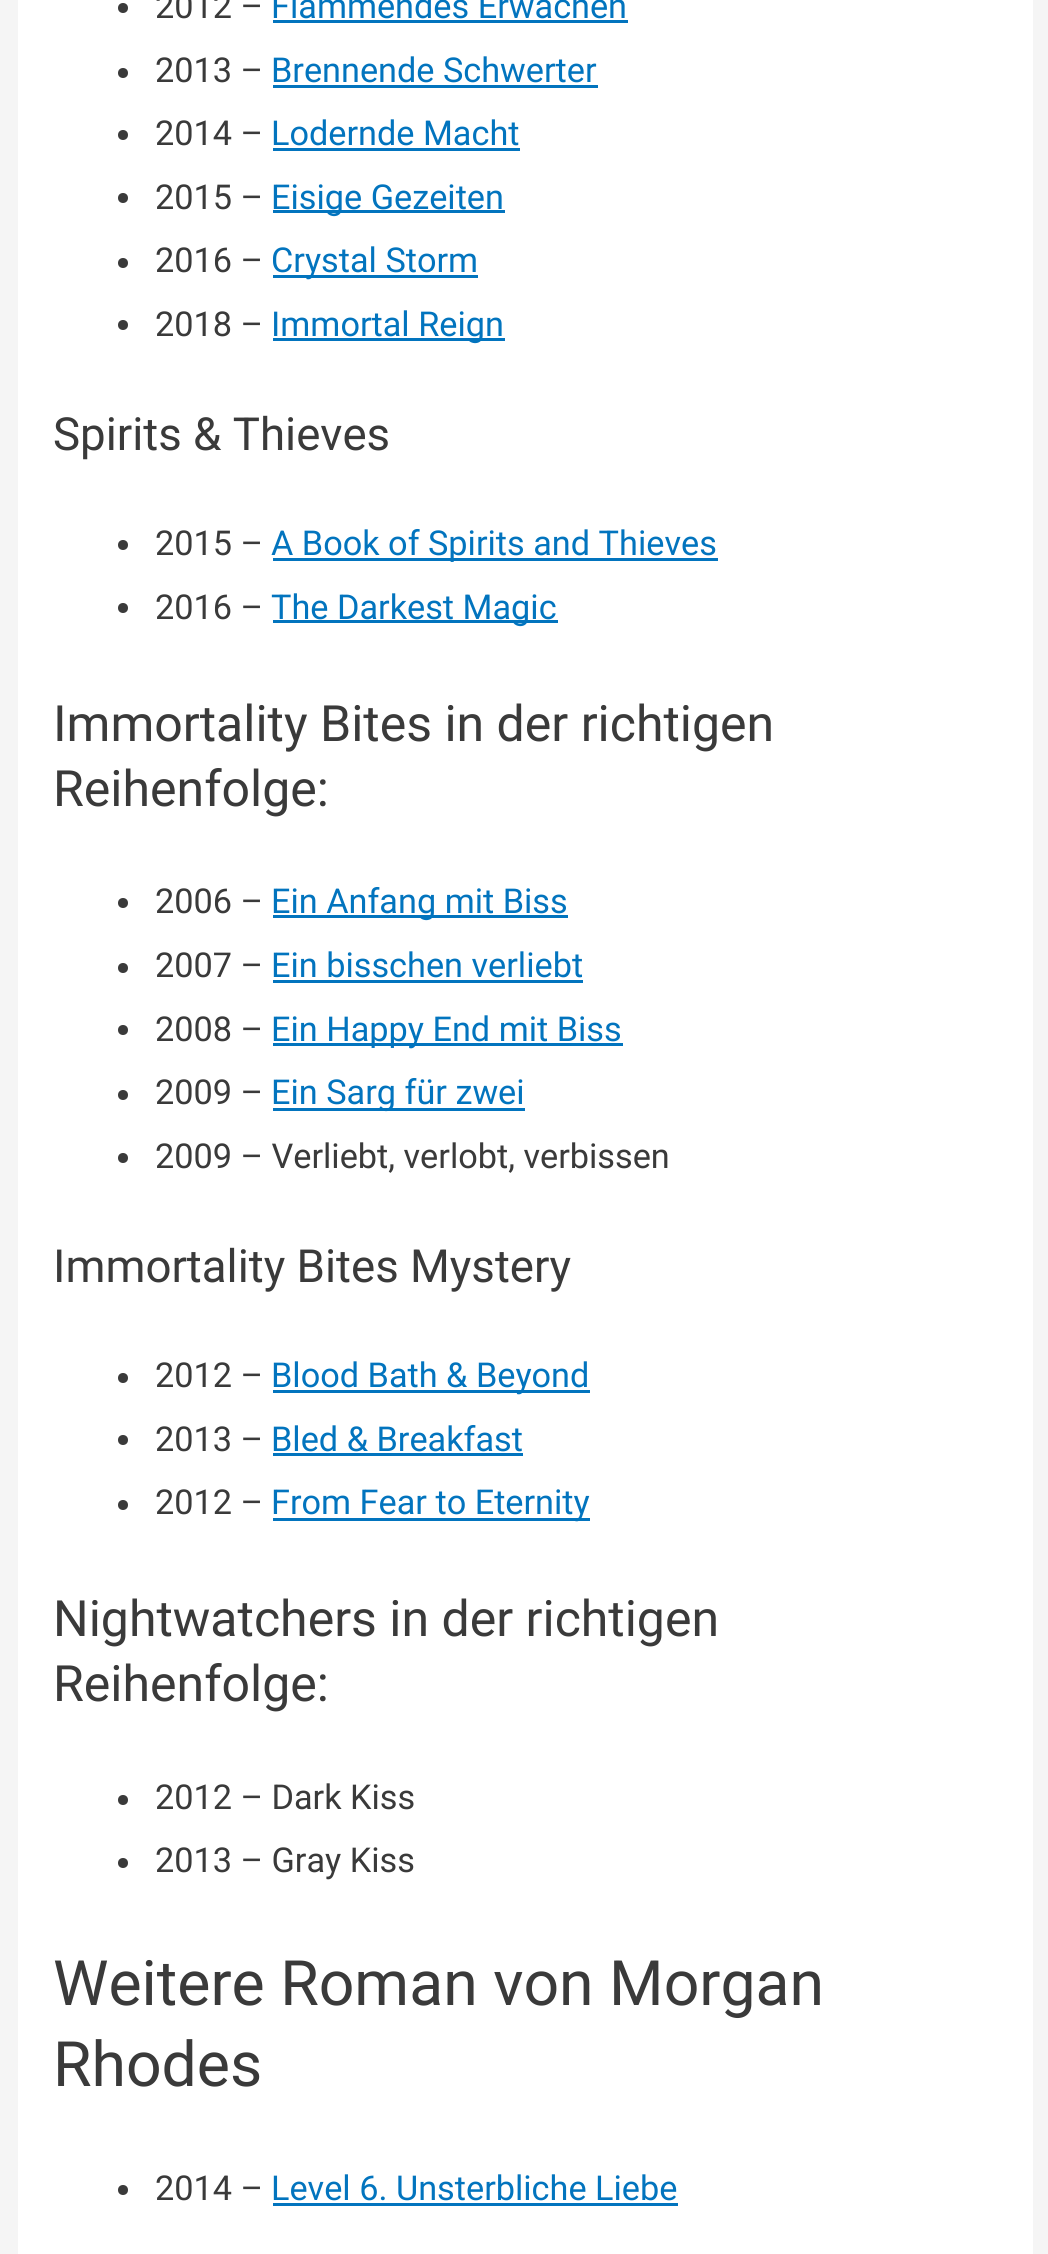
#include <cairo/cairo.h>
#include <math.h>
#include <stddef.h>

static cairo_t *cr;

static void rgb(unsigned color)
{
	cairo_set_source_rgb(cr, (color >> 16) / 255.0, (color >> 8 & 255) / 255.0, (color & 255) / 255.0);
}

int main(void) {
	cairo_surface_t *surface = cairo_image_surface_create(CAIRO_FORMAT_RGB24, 1048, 2254);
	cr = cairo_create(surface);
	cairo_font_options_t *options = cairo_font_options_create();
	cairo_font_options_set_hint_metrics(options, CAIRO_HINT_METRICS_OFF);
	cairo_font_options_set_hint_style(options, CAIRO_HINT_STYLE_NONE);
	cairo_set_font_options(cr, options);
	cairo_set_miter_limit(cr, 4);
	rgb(0xf5f5f5);
	cairo_paint(cr);
	rgb(0xffffff);
	cairo_rectangle(cr, 18, 0, 1015, 2254);
	cairo_fill(cr);
	rgb(0x3a3a3a);
	cairo_arc(cr, 123, 8, 5, 0, 2 * M_PI);
	cairo_fill(cr);
	rgb(0x0274be);
	cairo_rectangle(cr, 273, 20, 355, 3);
	cairo_fill(cr);
	rgb(0x3a3a3a);
	cairo_arc(cr, 123, 73, 5, 0, 2 * M_PI);
	cairo_fill(cr);
	rgb(0x0274be);
	cairo_rectangle(cr, 273, 85, 325, 3);
	cairo_fill(cr);
	rgb(0x3a3a3a);
	cairo_arc(cr, 123, 135, 5, 0, 2 * M_PI);
	cairo_fill(cr);
	rgb(0x0274be);
	cairo_rectangle(cr, 273, 148, 247, 3);
	cairo_fill(cr);
	rgb(0x3a3a3a);
	cairo_arc(cr, 123, 198, 5, 0, 2 * M_PI);
	cairo_fill(cr);
	rgb(0x0274be);
	cairo_rectangle(cr, 273, 210, 232, 3);
	cairo_fill(cr);
	rgb(0x3a3a3a);
	cairo_arc(cr, 123, 263, 5, 0, 2 * M_PI);
	cairo_fill(cr);
	rgb(0x0274be);
	cairo_rectangle(cr, 273, 275, 205, 3);
	cairo_fill(cr);
	rgb(0x3a3a3a);
	cairo_arc(cr, 123, 325, 5, 0, 2 * M_PI);
	cairo_fill(cr);
	rgb(0x0274be);
	cairo_rectangle(cr, 273, 338, 232, 3);
	cairo_fill(cr);
	rgb(0x3a3a3a);
	cairo_arc(cr, 123, 545, 5, 0, 2 * M_PI);
	cairo_fill(cr);
	rgb(0x0274be);
	cairo_rectangle(cr, 273, 558, 445, 3);
	cairo_fill(cr);
	rgb(0x3a3a3a);
	cairo_arc(cr, 123, 608, 5, 0, 2 * M_PI);
	cairo_fill(cr);
	rgb(0x0274be);
	cairo_rectangle(cr, 273, 620, 285, 3);
	cairo_fill(cr);
	rgb(0x3a3a3a);
	cairo_arc(cr, 123, 903, 5, 0, 2 * M_PI);
	cairo_fill(cr);
	rgb(0x0274be);
	cairo_rectangle(cr, 273, 915, 295, 3);
	cairo_fill(cr);
	rgb(0x3a3a3a);
	cairo_arc(cr, 123, 968, 5, 0, 2 * M_PI);
	cairo_fill(cr);
	rgb(0x0274be);
	cairo_rectangle(cr, 273, 980, 310, 3);
	cairo_fill(cr);
	rgb(0x3a3a3a);
	cairo_arc(cr, 123, 1030, 5, 0, 2 * M_PI);
	cairo_fill(cr);
	rgb(0x0274be);
	cairo_rectangle(cr, 273, 1043, 350, 3);
	cairo_fill(cr);
	rgb(0x3a3a3a);
	cairo_arc(cr, 123, 1095, 5, 0, 2 * M_PI);
	cairo_fill(cr);
	rgb(0x0274be);
	cairo_rectangle(cr, 273, 1108, 252, 3);
	cairo_fill(cr);
	rgb(0x3a3a3a);
	cairo_arc(cr, 123, 1158, 5, 0, 2 * M_PI);
	cairo_fill(cr);
	cairo_arc(cr, 123, 1378, 5, 0, 2 * M_PI);
	cairo_fill(cr);
	rgb(0x0274be);
	cairo_rectangle(cr, 273, 1390, 317, 3);
	cairo_fill(cr);
	rgb(0x3a3a3a);
	cairo_arc(cr, 123, 1440, 5, 0, 2 * M_PI);
	cairo_fill(cr);
	rgb(0x0274be);
	cairo_rectangle(cr, 273, 1453, 250, 3);
	cairo_fill(cr);
	rgb(0x3a3a3a);
	cairo_arc(cr, 123, 1505, 5, 0, 2 * M_PI);
	cairo_fill(cr);
	rgb(0x0274be);
	cairo_rectangle(cr, 273, 1518, 317, 3);
	cairo_fill(cr);
	rgb(0x3a3a3a);
	cairo_arc(cr, 123, 1800, 5, 0, 2 * M_PI);
	cairo_fill(cr);
	cairo_arc(cr, 123, 1863, 5, 0, 2 * M_PI);
	cairo_fill(cr);
	cairo_arc(cr, 123, 2190, 5, 0, 2 * M_PI);
	cairo_fill(cr);
	rgb(0x0274be);
	cairo_rectangle(cr, 273, 2203, 405, 3);
	cairo_fill(cr);
	cairo_select_font_face(cr, "Roboto", CAIRO_FONT_SLANT_NORMAL, CAIRO_FONT_WEIGHT_NORMAL);
	cairo_set_font_size(cr, 34.25);
	rgb(0x3a3a3a);
	cairo_move_to(cr, 155, 18);
	cairo_show_text(cr, "2012 –");
	rgb(0x0274be);
	cairo_move_to(cr, 271, 18);
	cairo_show_text(cr, "Flammendes Erwachen");
	rgb(0x3a3a3a);
	cairo_move_to(cr, 155, 82);
	cairo_show_text(cr, "2013 –");
	rgb(0x0274be);
	cairo_move_to(cr, 271, 82);
	cairo_show_text(cr, "Brennende Schwerter");
	rgb(0x3a3a3a);
	cairo_move_to(cr, 155, 145);
	cairo_show_text(cr, "2014 –");
	rgb(0x0274be);
	cairo_move_to(cr, 271, 145);
	cairo_show_text(cr, "Lodernde Macht");
	rgb(0x3a3a3a);
	cairo_move_to(cr, 155, 209);
	cairo_show_text(cr, "2015 –");
	rgb(0x0274be);
	cairo_move_to(cr, 271, 209);
	cairo_show_text(cr, "Eisige Gezeiten");
	rgb(0x3a3a3a);
	cairo_move_to(cr, 155, 272);
	cairo_show_text(cr, "2016 –");
	rgb(0x0274be);
	cairo_move_to(cr, 271, 272);
	cairo_show_text(cr, "Crystal Storm");
	rgb(0x3a3a3a);
	cairo_move_to(cr, 155, 336);
	cairo_show_text(cr, "2018 –");
	rgb(0x0274be);
	cairo_move_to(cr, 271, 336);
	cairo_show_text(cr, "Immortal Reign");
	cairo_set_font_size(cr, 45.6);
	rgb(0x3a3a3a);
	cairo_move_to(cr, 53, 450);
	cairo_show_text(cr, "Spirits & Thieves");
	cairo_set_font_size(cr, 34.25);
	cairo_move_to(cr, 155, 555);
	cairo_show_text(cr, "2015 –");
	rgb(0x0274be);
	cairo_move_to(cr, 271, 555);
	cairo_show_text(cr, "A Book of Spirits and Thieves");
	rgb(0x3a3a3a);
	cairo_move_to(cr, 155, 619);
	cairo_show_text(cr, "2016 –");
	rgb(0x0274be);
	cairo_move_to(cr, 271, 619);
	cairo_show_text(cr, "The Darkest Magic");
	cairo_set_font_size(cr, 50);
	rgb(0x3a3a3a);
	cairo_move_to(cr, 53, 741);
	cairo_show_text(cr, "Immortality Bites in der richtigen");
	cairo_move_to(cr, 53, 806);
	cairo_show_text(cr, "Reihenfolge:");
	cairo_set_font_size(cr, 34.25);
	cairo_move_to(cr, 155, 913);
	cairo_show_text(cr, "2006 –");
	rgb(0x0274be);
	cairo_move_to(cr, 271, 913);
	cairo_show_text(cr, "Ein Anfang mit Biss");
	rgb(0x3a3a3a);
	cairo_move_to(cr, 155, 977);
	cairo_show_text(cr, "2007 –");
	rgb(0x0274be);
	cairo_move_to(cr, 271, 977);
	cairo_show_text(cr, "Ein bisschen verliebt");
	rgb(0x3a3a3a);
	cairo_move_to(cr, 155, 1041);
	cairo_show_text(cr, "2008 –");
	rgb(0x0274be);
	cairo_move_to(cr, 271, 1041);
	cairo_show_text(cr, "Ein Happy End mit Biss");
	rgb(0x3a3a3a);
	cairo_move_to(cr, 155, 1104);
	cairo_show_text(cr, "2009 –");
	rgb(0x0274be);
	cairo_move_to(cr, 271, 1104);
	cairo_show_text(cr, "Ein Sarg für zwei");
	rgb(0x3a3a3a);
	cairo_move_to(cr, 155, 1168);
	cairo_show_text(cr, "2009 – Verliebt, verlobt, verbissen");
	cairo_set_font_size(cr, 45.6);
	cairo_move_to(cr, 53, 1282);
	cairo_show_text(cr, "Immortality Bites Mystery");
	cairo_set_font_size(cr, 34.25);
	cairo_move_to(cr, 155, 1387);
	cairo_show_text(cr, "2012 –");
	rgb(0x0274be);
	cairo_move_to(cr, 271, 1387);
	cairo_show_text(cr, "Blood Bath & Beyond");
	rgb(0x3a3a3a);
	cairo_move_to(cr, 155, 1451);
	cairo_show_text(cr, "2013 –");
	rgb(0x0274be);
	cairo_move_to(cr, 271, 1451);
	cairo_show_text(cr, "Bled & Breakfast");
	rgb(0x3a3a3a);
	cairo_move_to(cr, 155, 1514);
	cairo_show_text(cr, "2012 –");
	rgb(0x0274be);
	cairo_move_to(cr, 271, 1514);
	cairo_show_text(cr, "From Fear to Eternity");
	cairo_set_font_size(cr, 50);
	rgb(0x3a3a3a);
	cairo_move_to(cr, 53, 1636);
	cairo_show_text(cr, "Nightwatchers in der richtigen");
	cairo_move_to(cr, 53, 1701);
	cairo_show_text(cr, "Reihenfolge:");
	cairo_set_font_size(cr, 34.25);
	cairo_move_to(cr, 155, 1809);
	cairo_show_text(cr, "2012 – Dark Kiss");
	cairo_move_to(cr, 155, 1872);
	cairo_show_text(cr, "2013 – Gray Kiss");
	cairo_set_font_size(cr, 62.5);
	cairo_move_to(cr, 53, 2005);
	cairo_show_text(cr, "Weitere Roman von Morgan");
	cairo_move_to(cr, 53, 2086);
	cairo_show_text(cr, "Rhodes");
	cairo_set_font_size(cr, 34.25);
	cairo_move_to(cr, 155, 2200);
	cairo_show_text(cr, "2014 –");
	rgb(0x0274be);
	cairo_move_to(cr, 271, 2200);
	cairo_show_text(cr, "Level 6. Unsterbliche Liebe");
	cairo_surface_write_to_png(surface, "page.png");
	cairo_font_options_destroy(options);
	cairo_destroy(cr);
	cairo_surface_destroy(surface);
	return 0;
}
